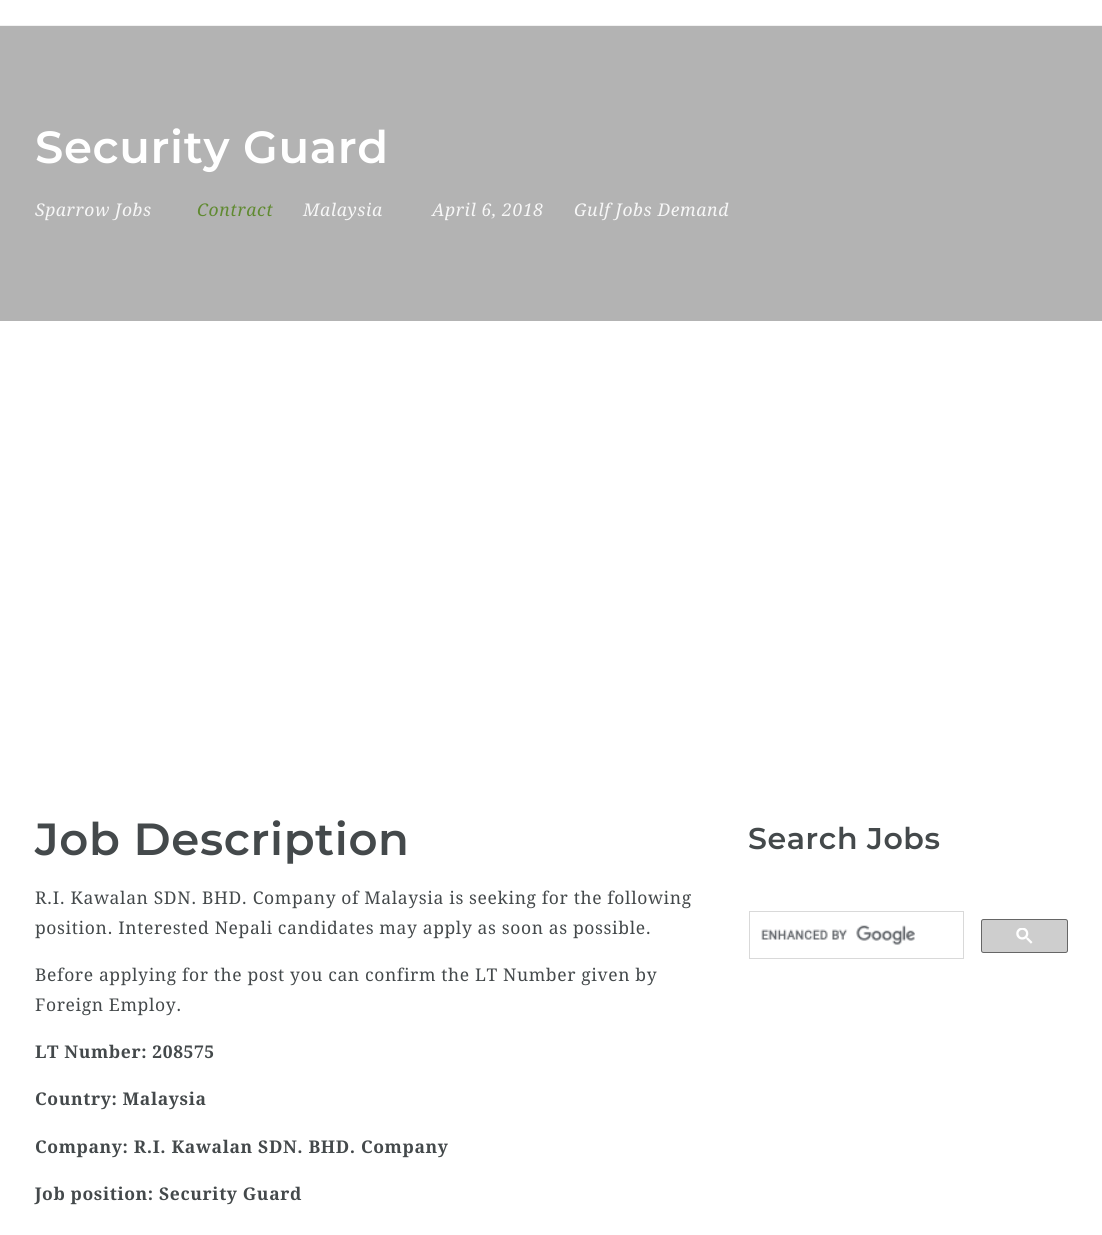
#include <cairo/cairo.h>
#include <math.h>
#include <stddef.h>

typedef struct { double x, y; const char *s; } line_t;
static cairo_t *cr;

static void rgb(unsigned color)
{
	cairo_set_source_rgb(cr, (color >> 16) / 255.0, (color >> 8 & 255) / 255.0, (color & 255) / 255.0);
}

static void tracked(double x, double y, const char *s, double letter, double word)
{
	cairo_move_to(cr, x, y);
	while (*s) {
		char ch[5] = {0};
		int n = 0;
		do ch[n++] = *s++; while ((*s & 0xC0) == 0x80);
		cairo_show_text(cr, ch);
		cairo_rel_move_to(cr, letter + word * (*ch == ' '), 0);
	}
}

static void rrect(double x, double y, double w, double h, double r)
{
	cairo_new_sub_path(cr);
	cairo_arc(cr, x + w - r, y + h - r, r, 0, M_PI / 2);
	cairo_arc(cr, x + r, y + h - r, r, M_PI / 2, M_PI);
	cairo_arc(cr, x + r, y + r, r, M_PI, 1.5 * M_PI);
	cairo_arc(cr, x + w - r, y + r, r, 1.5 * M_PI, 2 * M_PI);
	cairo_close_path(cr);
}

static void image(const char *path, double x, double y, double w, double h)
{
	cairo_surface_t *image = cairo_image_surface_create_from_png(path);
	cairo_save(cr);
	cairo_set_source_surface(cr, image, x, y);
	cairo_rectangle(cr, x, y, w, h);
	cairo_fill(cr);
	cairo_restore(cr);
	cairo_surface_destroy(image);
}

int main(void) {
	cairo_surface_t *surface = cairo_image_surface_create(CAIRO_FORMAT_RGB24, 1102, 1235);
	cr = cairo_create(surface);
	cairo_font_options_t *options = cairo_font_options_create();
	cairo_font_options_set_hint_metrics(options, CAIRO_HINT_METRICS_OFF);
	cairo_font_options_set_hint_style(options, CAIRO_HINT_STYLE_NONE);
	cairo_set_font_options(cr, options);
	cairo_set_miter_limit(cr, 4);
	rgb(0xffffff);
	cairo_paint(cr);
	rgb(0xf2f2f2);
	cairo_rectangle(cr, 0, 25, 1102, 1);
	cairo_fill(cr);
	rgb(0xb3b3b3);
	cairo_rectangle(cr, 0, 26, 1102, 295);
	cairo_fill(cr);
	cairo_rectangle(cr, 749.5, 911.5, 214, 47);
	rgb(0xd9d9d9);
	cairo_set_line_width(cr, 1);
	cairo_stroke(cr);
	image("img/1.png", 761, 925, 154, 20);
	rgb(0xcecece);
	rrect(981.5, 919.5, 86, 33, 2);
	cairo_fill_preserve(cr);
	rgb(0x666666);
	cairo_stroke(cr);
	image("img/2.png", 1016, 928, 17, 16);
	cairo_select_font_face(cr, "Montserrat SemiBold", CAIRO_FONT_SLANT_NORMAL, CAIRO_FONT_WEIGHT_NORMAL);
	cairo_set_font_size(cr, 45);
	rgb(0xffffff);
	tracked(35, 163, "Security Guard", 0.62, 0);
	cairo_select_font_face(cr, "Droid Serif", CAIRO_FONT_SLANT_ITALIC, CAIRO_FONT_WEIGHT_NORMAL);
	cairo_set_font_size(cr, 17.5);
	rgb(0xf7f7f7);
	tracked(35, 216, "Sparrow Jobs", 0.62, 0);
	rgb(0x608a31);
	tracked(197, 216, "Contract", 0.62, 0);
	rgb(0xf7f7f7);
	{
		static const line_t items[] = {
			{303, 216, "Malaysia"},
			{432, 216, "April 6, 2018"},
			{574, 216, "Gulf Jobs Demand"},
		};
		for (size_t i = 0; i < sizeof items / sizeof *items; i++) {
			tracked(items[i].x, items[i].y, items[i].s, 0.62, 0);
		}
	}
	cairo_select_font_face(cr, "Montserrat SemiBold", CAIRO_FONT_SLANT_NORMAL, CAIRO_FONT_WEIGHT_NORMAL);
	cairo_set_font_size(cr, 45);
	rgb(0x44494b);
	tracked(35, 855, "Job Description", 0.62, 0);
	cairo_select_font_face(cr, "Droid Serif", CAIRO_FONT_SLANT_NORMAL, CAIRO_FONT_WEIGHT_NORMAL);
	cairo_set_font_size(cr, 17.5);
	{
		static const line_t items[] = {
			{35, 904, "R.I. Kawalan SDN. BHD. Company of Malaysia is seeking for the following"},
			{35, 934, "position. Interested Nepali candidates may apply as soon as possible."},
			{35, 981, "Before applying for the post you can confirm the LT Number given by"},
			{35, 1011, "Foreign Employ."},
		};
		for (size_t i = 0; i < sizeof items / sizeof *items; i++) {
			tracked(items[i].x, items[i].y, items[i].s, 0.62, 0);
		}
	}
	cairo_select_font_face(cr, "Droid Serif", CAIRO_FONT_SLANT_NORMAL, CAIRO_FONT_WEIGHT_BOLD);
	{
		static const line_t items[] = {
			{35, 1058, "LT Number: 208575"},
			{35, 1105, "Country: Malaysia"},
			{35, 1153, "Company: R.I. Kawalan SDN. BHD. Company"},
			{35, 1200, "Job position: Security Guard"},
		};
		for (size_t i = 0; i < sizeof items / sizeof *items; i++) {
			tracked(items[i].x, items[i].y, items[i].s, 0.62, 0);
		}
	}
	cairo_select_font_face(cr, "Montserrat SemiBold", CAIRO_FONT_SLANT_NORMAL, CAIRO_FONT_WEIGHT_NORMAL);
	cairo_set_font_size(cr, 30);
	tracked(748, 849, "Search Jobs", 0.62, 0);
	cairo_surface_write_to_png(surface, "page.png");
	cairo_font_options_destroy(options);
	cairo_destroy(cr);
	cairo_surface_destroy(surface);
	return 0;
}
